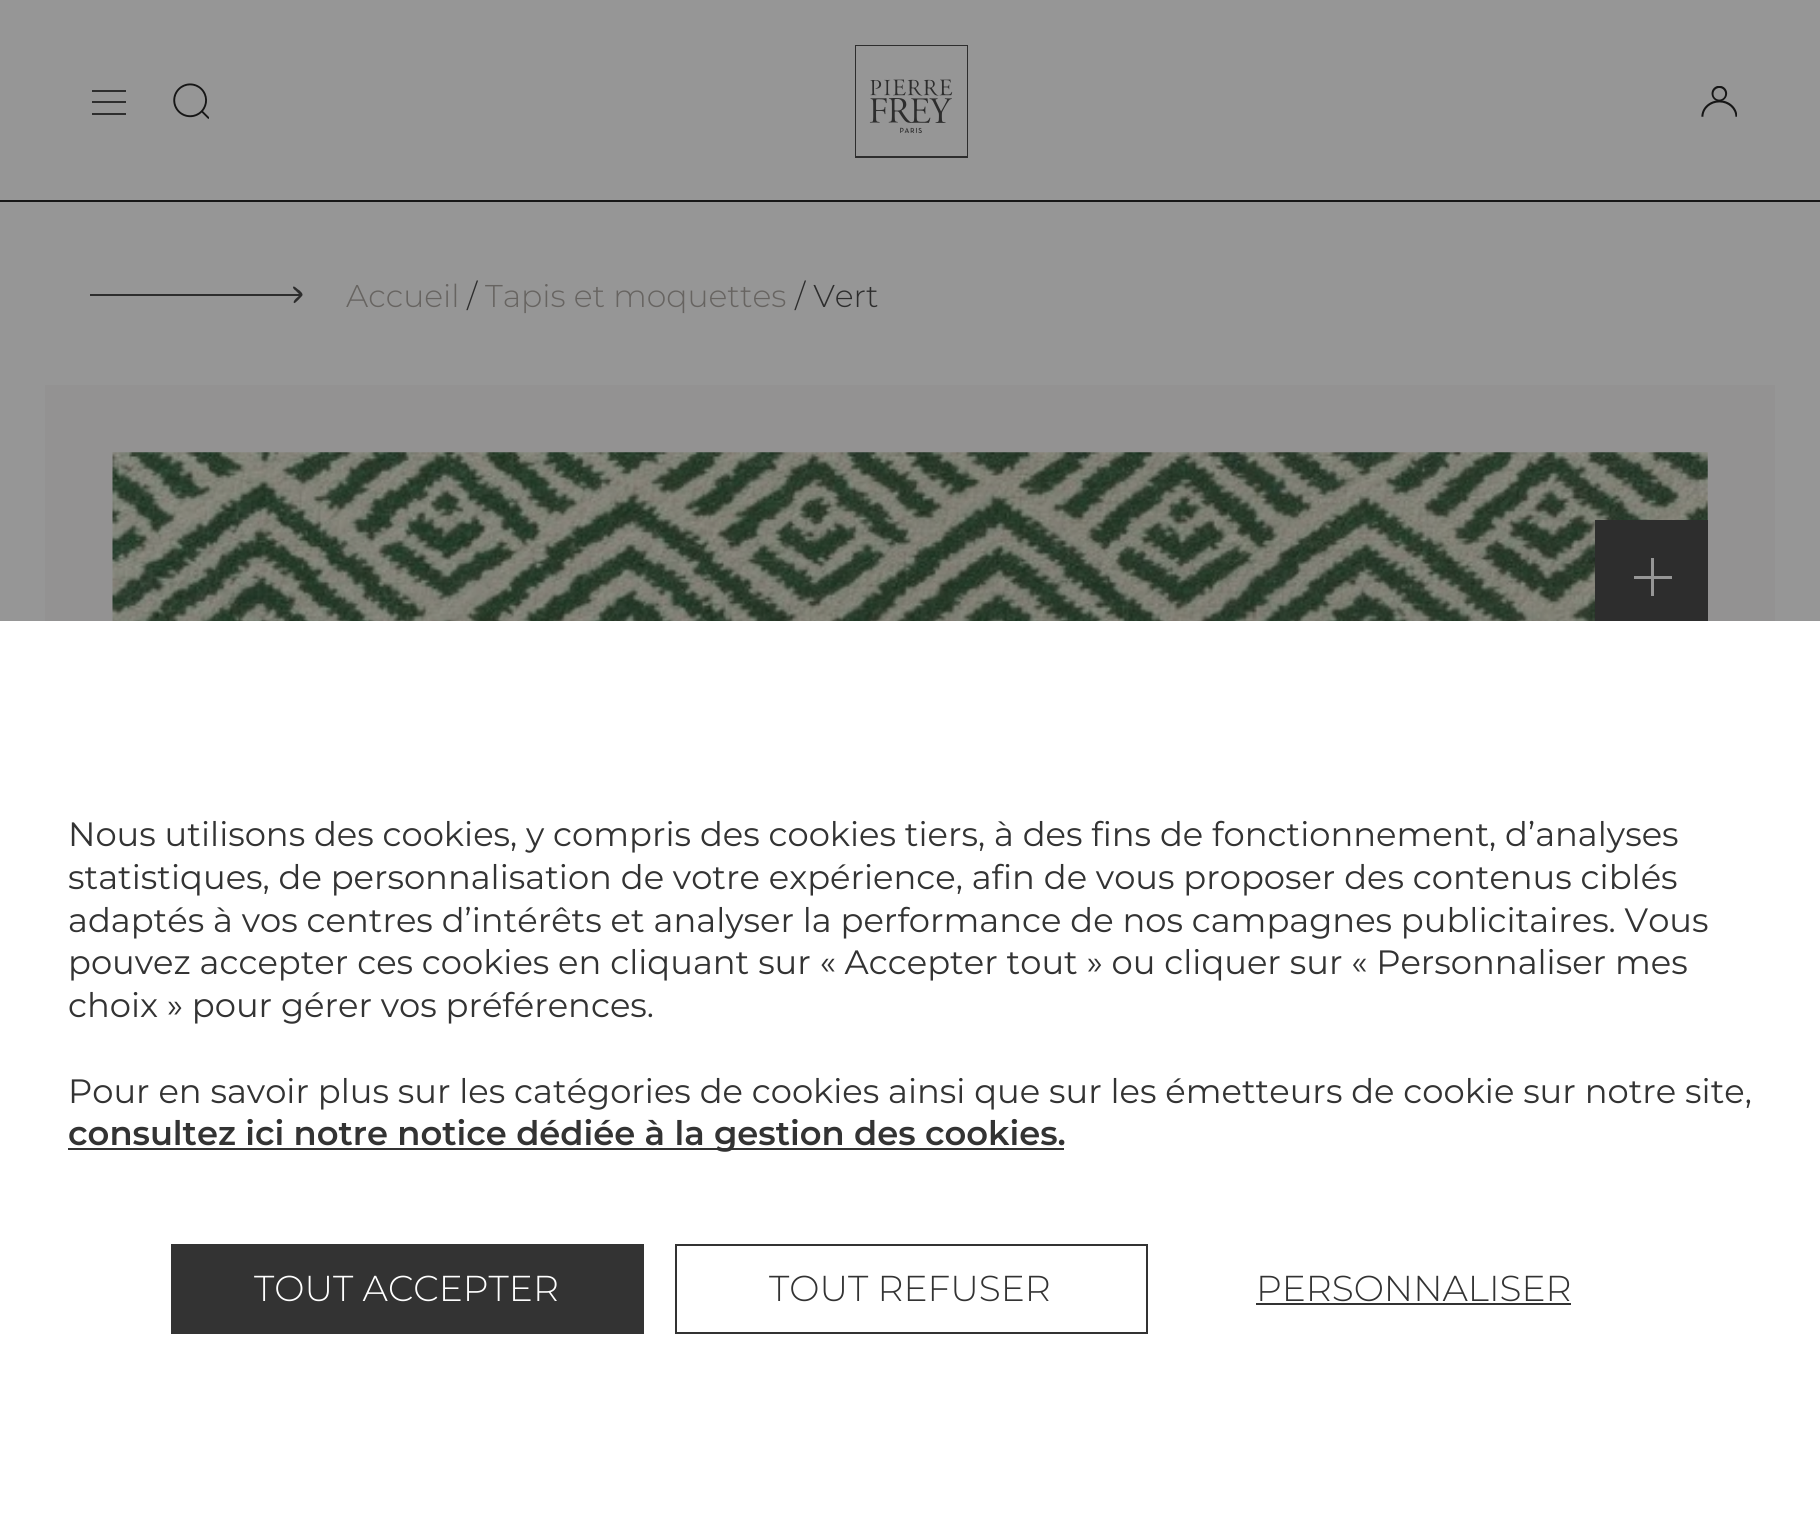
#include <cairo/cairo.h>
#include <math.h>
#include <stddef.h>

typedef struct { double x, y; const char *s; } line_t;
typedef struct { double x, y, w, h; unsigned color; } box_t;
static cairo_t *cr;

static void rgb(unsigned color)
{
	cairo_set_source_rgb(cr, (color >> 16) / 255.0, (color >> 8 & 255) / 255.0, (color & 255) / 255.0);
}

static void image(const char *path, double x, double y, double w, double h)
{
	cairo_surface_t *image = cairo_image_surface_create_from_png(path);
	cairo_save(cr);
	cairo_set_source_surface(cr, image, x, y);
	cairo_rectangle(cr, x, y, w, h);
	cairo_fill(cr);
	cairo_restore(cr);
	cairo_surface_destroy(image);
}

int main(void) {
	cairo_surface_t *surface = cairo_image_surface_create(CAIRO_FORMAT_RGB24, 1820, 1536);
	cr = cairo_create(surface);
	cairo_font_options_t *options = cairo_font_options_create();
	cairo_font_options_set_hint_metrics(options, CAIRO_HINT_METRICS_OFF);
	cairo_font_options_set_hint_style(options, CAIRO_HINT_STYLE_NONE);
	cairo_set_font_options(cr, options);
	cairo_set_miter_limit(cr, 4);
	rgb(0x969696);
	cairo_paint(cr);
	rgb(0x171717);
	cairo_rectangle(cr, 0, 200, 1820, 2);
	cairo_fill(cr);
	image("img/1.png", 855, 45, 113, 113);
	{
		static const box_t items[] = {
			{92, 90, 34, 2, 0x2d2d2d},
			{92, 101, 34, 2, 0x2d2d2d},
			{92, 113, 34, 2, 0x2d2d2d},
		};
		for (size_t i = 0; i < sizeof items / sizeof *items; i++) {
			rgb(items[i].color);
			cairo_rectangle(cr, items[i].x, items[i].y, items[i].w, items[i].h);
			cairo_fill(cr);
		}
	}
	image("img/2.png", 173, 83, 36, 36);
	image("img/3.png", 1701, 86, 36, 31);
	cairo_new_path(cr);
	cairo_move_to(cr, 302, 296);
	cairo_curve_to(cr, 304, 294, 300, 291, 299, 290);
	cairo_curve_to(cr, 298, 290, 294, 285, 293, 287);
	cairo_curve_to(cr, 293, 289, 295, 290, 296, 291);
	cairo_line_to(cr, 300, 295);
	cairo_curve_to(cr, 299, 296, 292, 301, 294, 303);
	cairo_curve_to(cr, 295, 304, 301, 297, 302, 296);
	cairo_close_path(cr);
	cairo_move_to(cr, 90, 296);
	cairo_line_to(cr, 302, 296);
	cairo_line_to(cr, 302, 294);
	cairo_line_to(cr, 90, 294);
	cairo_close_path(cr);
	cairo_fill(cr);
	rgb(0x939292);
	cairo_rectangle(cr, 45, 385, 1730, 236);
	cairo_fill(cr);
	rgb(0x969696);
	cairo_rectangle(cr, 113, 452, 1595, 68);
	cairo_fill(cr);
	image("img/4.png", 112, 452, 1596, 169);
	{
		static const box_t items[] = {
			{1595, 520, 113, 101, 0x2d2d2d},
			{1651, 558, 3, 38, 0x969696},
			{1634, 576, 38, 3, 0x969696},
			{0, 621, 1820, 915, 0xffffff},
			{68, 1148, 996, 2, 0x333333},
			{171, 1244, 473, 90, 0x333333},
		};
		for (size_t i = 0; i < sizeof items / sizeof *items; i++) {
			rgb(items[i].color);
			cairo_rectangle(cr, items[i].x, items[i].y, items[i].w, items[i].h);
			cairo_fill(cr);
		}
	}
	cairo_rectangle(cr, 676, 1245, 471, 88);
	cairo_stroke(cr);
	cairo_rectangle(cr, 1256, 1303, 315, 2);
	cairo_fill(cr);
	cairo_select_font_face(cr, "Montserrat Light", CAIRO_FONT_SLANT_NORMAL, CAIRO_FONT_WEIGHT_NORMAL);
	cairo_set_font_size(cr, 31.5);
	rgb(0x676461);
	cairo_move_to(cr, 346, 307);
	cairo_show_text(cr, "Accueil");
	rgb(0x2d2d2d);
	cairo_move_to(cr, 467, 307);
	cairo_show_text(cr, "/");
	rgb(0x676461);
	cairo_move_to(cr, 485, 307);
	cairo_show_text(cr, "Tapis et moquettes");
	rgb(0x2d2d2d);
	cairo_move_to(cr, 795, 307);
	cairo_show_text(cr, "/ Vert");
	cairo_select_font_face(cr, "Montserrat", CAIRO_FONT_SLANT_NORMAL, CAIRO_FONT_WEIGHT_NORMAL);
	cairo_set_font_size(cr, 33.75);
	rgb(0x333333);
	{
		static const line_t items[] = {
			{68, 846, "Nous utilisons des cookies, y compris des cookies tiers, à des fins de fonctionnement, d’analyses"},
			{68, 889, "statistiques, de personnalisation de votre expérience, afin de vous proposer des contenus ciblés"},
			{68, 932, "adaptés à vos centres d’intérêts et analyser la performance de nos campagnes publicitaires. Vous"},
			{68, 974, "pouvez accepter ces cookies en cliquant sur « Accepter tout » ou cliquer sur « Personnaliser mes"},
			{68, 1017, "choix » pour gérer vos préférences."},
			{68, 1103, "Pour en savoir plus sur les catégories de cookies ainsi que sur les émetteurs de cookie sur notre site,"},
		};
		for (size_t i = 0; i < sizeof items / sizeof *items; i++) {
			cairo_move_to(cr, items[i].x, items[i].y);
			cairo_show_text(cr, items[i].s);
		}
	}
	cairo_select_font_face(cr, "Montserrat SemiBold", CAIRO_FONT_SLANT_NORMAL, CAIRO_FONT_WEIGHT_NORMAL);
	cairo_move_to(cr, 68, 1145);
	cairo_show_text(cr, "consultez ici notre notice dédiée à la gestion des cookies.");
	cairo_select_font_face(cr, "Montserrat Light", CAIRO_FONT_SLANT_NORMAL, CAIRO_FONT_WEIGHT_NORMAL);
	cairo_set_font_size(cr, 36);
	rgb(0xffffff);
	cairo_move_to(cr, 254, 1301);
	cairo_show_text(cr, "TOUT ACCEPTER");
	rgb(0x333333);
	cairo_move_to(cr, 769, 1301);
	cairo_show_text(cr, "TOUT REFUSER");
	cairo_move_to(cr, 1256, 1301);
	cairo_show_text(cr, "PERSONNALISER");
	cairo_surface_write_to_png(surface, "page.png");
	cairo_font_options_destroy(options);
	cairo_destroy(cr);
	cairo_surface_destroy(surface);
	return 0;
}
